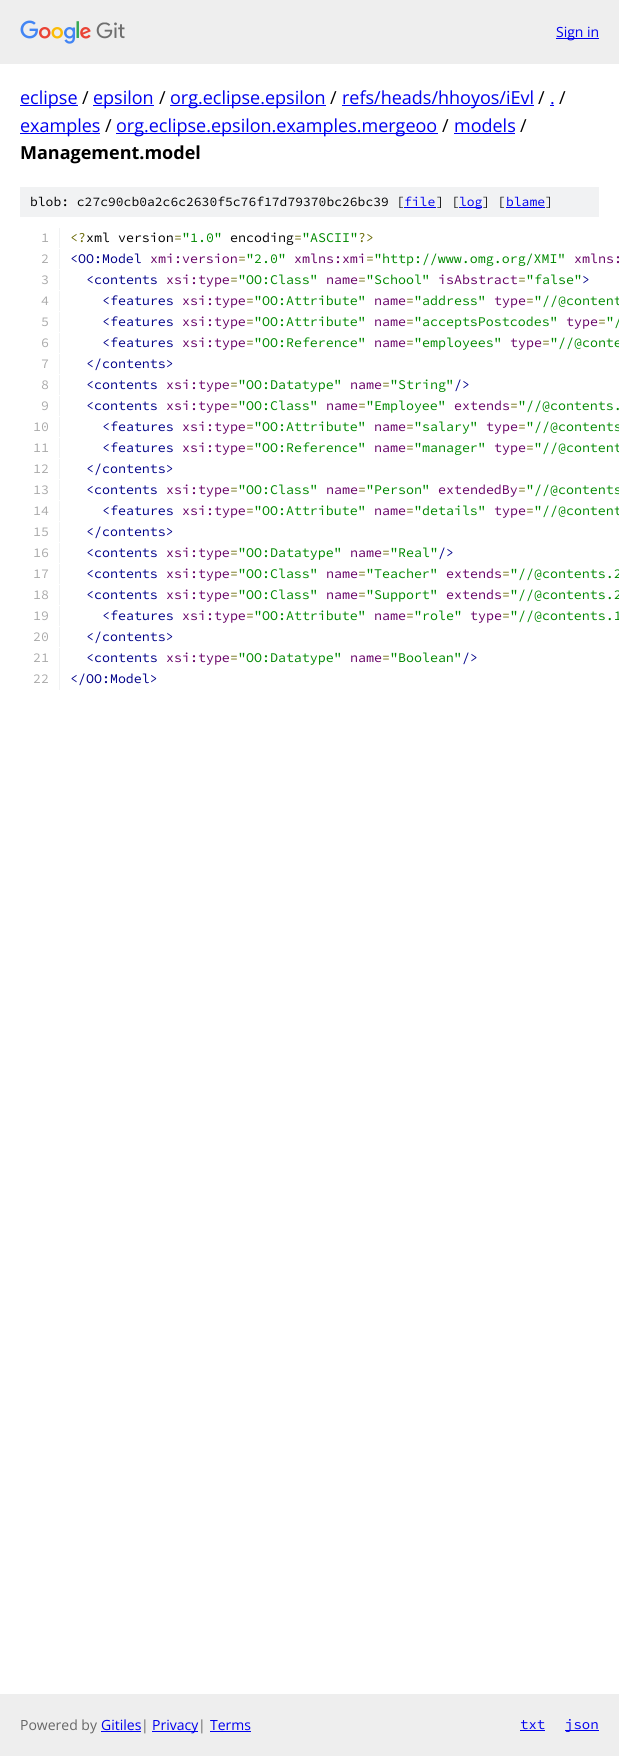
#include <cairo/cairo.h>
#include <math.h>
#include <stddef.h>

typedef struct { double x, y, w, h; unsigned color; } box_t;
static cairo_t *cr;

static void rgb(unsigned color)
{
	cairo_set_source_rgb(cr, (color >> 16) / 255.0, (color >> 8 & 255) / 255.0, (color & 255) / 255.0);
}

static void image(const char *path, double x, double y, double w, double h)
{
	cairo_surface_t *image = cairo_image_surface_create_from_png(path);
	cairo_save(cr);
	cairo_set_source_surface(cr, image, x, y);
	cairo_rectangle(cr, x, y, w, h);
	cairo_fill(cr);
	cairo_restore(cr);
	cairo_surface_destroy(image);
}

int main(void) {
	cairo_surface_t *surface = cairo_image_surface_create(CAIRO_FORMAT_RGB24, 619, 1756);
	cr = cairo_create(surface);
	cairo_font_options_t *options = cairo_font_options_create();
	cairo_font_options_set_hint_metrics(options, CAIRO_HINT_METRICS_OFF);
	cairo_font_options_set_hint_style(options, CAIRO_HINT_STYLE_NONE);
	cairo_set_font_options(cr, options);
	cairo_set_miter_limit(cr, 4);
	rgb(0xffffff);
	cairo_paint(cr);
	rgb(0xeeeeee);
	cairo_rectangle(cr, 0, 0, 619, 64);
	cairo_fill(cr);
	image("img/1.png", 20, 20, 105, 24);
	{
		static const box_t items[] = {
			{556, 38, 43, 1, 0x0000ee},
			{20, 105, 58, 1, 0x0000ee},
			{93, 105, 61, 1, 0x0000ee},
			{170, 105, 156, 1, 0x0000ee},
			{342, 105, 192, 1, 0x0000ee},
			{550, 105, 4, 1, 0x0000ee},
			{20, 133, 80, 1, 0x0000ee},
			{116, 133, 322, 1, 0x0000ee},
			{454, 133, 61, 1, 0x0000ee},
			{20, 187, 579, 30, 0xf1f2f3},
			{404, 207, 32, 1, 0x0000ee},
			{459, 207, 23, 1, 0x0000ee},
			{506, 207, 39, 1, 0x0000ee},
			{59, 228, 1, 20, 0xf1f2f3},
			{59, 249, 1, 20, 0xf1f2f3},
			{59, 270, 1, 20, 0xf1f2f3},
			{59, 291, 1, 20, 0xf1f2f3},
			{59, 312, 1, 20, 0xf1f2f3},
			{59, 333, 1, 20, 0xf1f2f3},
			{59, 354, 1, 20, 0xf1f2f3},
			{59, 375, 1, 20, 0xf1f2f3},
			{59, 396, 1, 20, 0xf1f2f3},
			{59, 417, 1, 20, 0xf1f2f3},
			{59, 438, 1, 20, 0xf1f2f3},
			{59, 459, 1, 20, 0xf1f2f3},
			{59, 480, 1, 20, 0xf1f2f3},
			{59, 501, 1, 20, 0xf1f2f3},
			{59, 522, 1, 20, 0xf1f2f3},
			{59, 543, 1, 20, 0xf1f2f3},
			{59, 564, 1, 20, 0xf1f2f3},
			{59, 585, 1, 20, 0xf1f2f3},
			{59, 606, 1, 20, 0xf1f2f3},
			{59, 627, 1, 20, 0xf1f2f3},
			{59, 648, 1, 42, 0xf1f2f3},
			{0, 1694, 619, 62, 0xeeeeee},
			{101, 1731, 40, 1, 0x0000ee},
			{152, 1731, 46, 1, 0x0000ee},
			{210, 1731, 41, 1, 0x0000ee},
			{520, 1730, 25, 1, 0x0000ee},
			{565, 1730, 34, 1, 0x0000ee},
		};
		for (size_t i = 0; i < sizeof items / sizeof *items; i++) {
			rgb(items[i].color);
			cairo_rectangle(cr, items[i].x, items[i].y, items[i].w, items[i].h);
			cairo_fill(cr);
		}
	}
	cairo_select_font_face(cr, "Open Sans", CAIRO_FONT_SLANT_NORMAL, CAIRO_FONT_WEIGHT_NORMAL);
	cairo_set_font_size(cr, 14);
	cairo_move_to(cr, 556, 37);
	cairo_show_text(cr, "Sign in");
	cairo_set_font_size(cr, 18);
	cairo_move_to(cr, 20, 104);
	cairo_show_text(cr, "eclipse");
	rgb(0x000000);
	cairo_move_to(cr, 82, 104);
	cairo_show_text(cr, "/");
	rgb(0x0000ee);
	cairo_move_to(cr, 93, 104);
	cairo_show_text(cr, "epsilon");
	rgb(0x000000);
	cairo_move_to(cr, 159, 104);
	cairo_show_text(cr, "/");
	rgb(0x0000ee);
	cairo_move_to(cr, 170, 104);
	cairo_show_text(cr, "org.eclipse.epsilon");
	rgb(0x000000);
	cairo_move_to(cr, 330, 104);
	cairo_show_text(cr, "/");
	rgb(0x0000ee);
	cairo_move_to(cr, 342, 104);
	cairo_show_text(cr, "refs/heads/hhoyos/iEvl");
	rgb(0x000000);
	cairo_move_to(cr, 538, 104);
	cairo_show_text(cr, "/");
	rgb(0x0000ee);
	cairo_move_to(cr, 550, 104);
	cairo_show_text(cr, ".");
	rgb(0x000000);
	cairo_move_to(cr, 559, 104);
	cairo_show_text(cr, "/");
	rgb(0x0000ee);
	cairo_move_to(cr, 20, 132);
	cairo_show_text(cr, "examples");
	rgb(0x000000);
	cairo_move_to(cr, 105, 132);
	cairo_show_text(cr, "/");
	rgb(0x0000ee);
	cairo_move_to(cr, 116, 132);
	cairo_show_text(cr, "org.eclipse.epsilon.examples.mergeoo");
	rgb(0x000000);
	cairo_move_to(cr, 442, 132);
	cairo_show_text(cr, "/");
	rgb(0x0000ee);
	cairo_move_to(cr, 454, 132);
	cairo_show_text(cr, "models");
	rgb(0x000000);
	cairo_move_to(cr, 520, 132);
	cairo_show_text(cr, "/");
	cairo_select_font_face(cr, "Open Sans", CAIRO_FONT_SLANT_NORMAL, CAIRO_FONT_WEIGHT_BOLD);
	cairo_move_to(cr, 20, 159);
	cairo_show_text(cr, "Management.model");
	cairo_select_font_face(cr, "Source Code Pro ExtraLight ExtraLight", CAIRO_FONT_SLANT_NORMAL, CAIRO_FONT_WEIGHT_NORMAL);
	cairo_set_font_size(cr, 13);
	cairo_move_to(cr, 30, 206);
	cairo_show_text(cr, "blob: c27c90cb0a2c6c2630f5c76f17d79370bc26bc39 [");
	rgb(0x0000ee);
	cairo_move_to(cr, 404, 206);
	cairo_show_text(cr, "file");
	rgb(0x000000);
	cairo_move_to(cr, 436, 206);
	cairo_show_text(cr, "] [");
	rgb(0x0000ee);
	cairo_move_to(cr, 459, 206);
	cairo_show_text(cr, "log");
	rgb(0x000000);
	cairo_move_to(cr, 482, 206);
	cairo_show_text(cr, "] [");
	rgb(0x0000ee);
	cairo_move_to(cr, 506, 206);
	cairo_show_text(cr, "blame");
	rgb(0x000000);
	cairo_move_to(cr, 545, 206);
	cairo_show_text(cr, "]");
	cairo_set_font_size(cr, 13.3);
	rgb(0xaaaaaa);
	cairo_move_to(cr, 41, 242);
	cairo_show_text(cr, "1");
	rgb(0x666600);
	cairo_move_to(cr, 70, 242);
	cairo_show_text(cr, "<?");
	rgb(0x000000);
	cairo_move_to(cr, 86, 242);
	cairo_show_text(cr, "xml version");
	rgb(0x666600);
	cairo_move_to(cr, 174, 242);
	cairo_show_text(cr, "=");
	rgb(0x008800);
	cairo_move_to(cr, 182, 242);
	cairo_show_text(cr, "\"1.0\"");
	rgb(0x000000);
	cairo_move_to(cr, 230, 242);
	cairo_show_text(cr, "encoding");
	rgb(0x666600);
	cairo_move_to(cr, 294, 242);
	cairo_show_text(cr, "=");
	rgb(0x008800);
	cairo_move_to(cr, 302, 242);
	cairo_show_text(cr, "\"ASCII\"");
	rgb(0x666600);
	cairo_move_to(cr, 358, 242);
	cairo_show_text(cr, "?>");
	rgb(0xaaaaaa);
	cairo_move_to(cr, 41, 263);
	cairo_show_text(cr, "2");
	rgb(0x000088);
	cairo_move_to(cr, 70, 263);
	cairo_show_text(cr, "<OO:Model");
	rgb(0x660066);
	cairo_move_to(cr, 150, 263);
	cairo_show_text(cr, "xmi:version");
	rgb(0x666600);
	cairo_move_to(cr, 238, 263);
	cairo_show_text(cr, "=");
	rgb(0x008800);
	cairo_move_to(cr, 246, 263);
	cairo_show_text(cr, "\"2.0\"");
	rgb(0x660066);
	cairo_move_to(cr, 294, 263);
	cairo_show_text(cr, "xmlns:xmi");
	rgb(0x666600);
	cairo_move_to(cr, 366, 263);
	cairo_show_text(cr, "=");
	rgb(0x008800);
	cairo_move_to(cr, 374, 263);
	cairo_show_text(cr, "\"http://www.omg.org/XMI\"");
	rgb(0x660066);
	cairo_move_to(cr, 574, 263);
	cairo_show_text(cr, "xmlns:");
	rgb(0xaaaaaa);
	cairo_move_to(cr, 41, 284);
	cairo_show_text(cr, "3");
	rgb(0x000088);
	cairo_move_to(cr, 86, 284);
	cairo_show_text(cr, "<contents");
	rgb(0x660066);
	cairo_move_to(cr, 166, 284);
	cairo_show_text(cr, "xsi:type");
	rgb(0x666600);
	cairo_move_to(cr, 230, 284);
	cairo_show_text(cr, "=");
	rgb(0x008800);
	cairo_move_to(cr, 238, 284);
	cairo_show_text(cr, "\"OO:Class\"");
	rgb(0x660066);
	cairo_move_to(cr, 326, 284);
	cairo_show_text(cr, "name");
	rgb(0x666600);
	cairo_move_to(cr, 358, 284);
	cairo_show_text(cr, "=");
	rgb(0x008800);
	cairo_move_to(cr, 366, 284);
	cairo_show_text(cr, "\"School\"");
	rgb(0x660066);
	cairo_move_to(cr, 438, 284);
	cairo_show_text(cr, "isAbstract");
	rgb(0x666600);
	cairo_move_to(cr, 518, 284);
	cairo_show_text(cr, "=");
	rgb(0x008800);
	cairo_move_to(cr, 526, 284);
	cairo_show_text(cr, "\"false\"");
	rgb(0x000088);
	cairo_move_to(cr, 582, 284);
	cairo_show_text(cr, ">");
	rgb(0xaaaaaa);
	cairo_move_to(cr, 41, 305);
	cairo_show_text(cr, "4");
	rgb(0x000088);
	cairo_move_to(cr, 102, 305);
	cairo_show_text(cr, "<features");
	rgb(0x660066);
	cairo_move_to(cr, 182, 305);
	cairo_show_text(cr, "xsi:type");
	rgb(0x666600);
	cairo_move_to(cr, 246, 305);
	cairo_show_text(cr, "=");
	rgb(0x008800);
	cairo_move_to(cr, 254, 305);
	cairo_show_text(cr, "\"OO:Attribute\"");
	rgb(0x660066);
	cairo_move_to(cr, 374, 305);
	cairo_show_text(cr, "name");
	rgb(0x666600);
	cairo_move_to(cr, 406, 305);
	cairo_show_text(cr, "=");
	rgb(0x008800);
	cairo_move_to(cr, 414, 305);
	cairo_show_text(cr, "\"address\"");
	rgb(0x660066);
	cairo_move_to(cr, 494, 305);
	cairo_show_text(cr, "type");
	rgb(0x666600);
	cairo_move_to(cr, 526, 305);
	cairo_show_text(cr, "=");
	rgb(0x008800);
	cairo_move_to(cr, 534, 305);
	cairo_show_text(cr, "\"//@content");
	rgb(0xaaaaaa);
	cairo_move_to(cr, 41, 326);
	cairo_show_text(cr, "5");
	rgb(0x000088);
	cairo_move_to(cr, 102, 326);
	cairo_show_text(cr, "<features");
	rgb(0x660066);
	cairo_move_to(cr, 182, 326);
	cairo_show_text(cr, "xsi:type");
	rgb(0x666600);
	cairo_move_to(cr, 246, 326);
	cairo_show_text(cr, "=");
	rgb(0x008800);
	cairo_move_to(cr, 254, 326);
	cairo_show_text(cr, "\"OO:Attribute\"");
	rgb(0x660066);
	cairo_move_to(cr, 374, 326);
	cairo_show_text(cr, "name");
	rgb(0x666600);
	cairo_move_to(cr, 406, 326);
	cairo_show_text(cr, "=");
	rgb(0x008800);
	cairo_move_to(cr, 414, 326);
	cairo_show_text(cr, "\"acceptsPostcodes\"");
	rgb(0x660066);
	cairo_move_to(cr, 566, 326);
	cairo_show_text(cr, "type");
	rgb(0x666600);
	cairo_move_to(cr, 598, 326);
	cairo_show_text(cr, "=");
	rgb(0x008800);
	cairo_move_to(cr, 606, 326);
	cairo_show_text(cr, "\"/");
	rgb(0xaaaaaa);
	cairo_move_to(cr, 41, 347);
	cairo_show_text(cr, "6");
	rgb(0x000088);
	cairo_move_to(cr, 102, 347);
	cairo_show_text(cr, "<features");
	rgb(0x660066);
	cairo_move_to(cr, 182, 347);
	cairo_show_text(cr, "xsi:type");
	rgb(0x666600);
	cairo_move_to(cr, 246, 347);
	cairo_show_text(cr, "=");
	rgb(0x008800);
	cairo_move_to(cr, 254, 347);
	cairo_show_text(cr, "\"OO:Reference\"");
	rgb(0x660066);
	cairo_move_to(cr, 374, 347);
	cairo_show_text(cr, "name");
	rgb(0x666600);
	cairo_move_to(cr, 406, 347);
	cairo_show_text(cr, "=");
	rgb(0x008800);
	cairo_move_to(cr, 414, 347);
	cairo_show_text(cr, "\"employees\"");
	rgb(0x660066);
	cairo_move_to(cr, 510, 347);
	cairo_show_text(cr, "type");
	rgb(0x666600);
	cairo_move_to(cr, 542, 347);
	cairo_show_text(cr, "=");
	rgb(0x008800);
	cairo_move_to(cr, 550, 347);
	cairo_show_text(cr, "\"//@conte");
	rgb(0xaaaaaa);
	cairo_move_to(cr, 41, 368);
	cairo_show_text(cr, "7");
	rgb(0x000088);
	cairo_move_to(cr, 86, 368);
	cairo_show_text(cr, "</contents>");
	rgb(0xaaaaaa);
	cairo_move_to(cr, 41, 389);
	cairo_show_text(cr, "8");
	rgb(0x000088);
	cairo_move_to(cr, 86, 389);
	cairo_show_text(cr, "<contents");
	rgb(0x660066);
	cairo_move_to(cr, 166, 389);
	cairo_show_text(cr, "xsi:type");
	rgb(0x666600);
	cairo_move_to(cr, 230, 389);
	cairo_show_text(cr, "=");
	rgb(0x008800);
	cairo_move_to(cr, 238, 389);
	cairo_show_text(cr, "\"OO:Datatype\"");
	rgb(0x660066);
	cairo_move_to(cr, 350, 389);
	cairo_show_text(cr, "name");
	rgb(0x666600);
	cairo_move_to(cr, 382, 389);
	cairo_show_text(cr, "=");
	rgb(0x008800);
	cairo_move_to(cr, 390, 389);
	cairo_show_text(cr, "\"String\"");
	rgb(0x000088);
	cairo_move_to(cr, 454, 389);
	cairo_show_text(cr, "/>");
	rgb(0xaaaaaa);
	cairo_move_to(cr, 41, 410);
	cairo_show_text(cr, "9");
	rgb(0x000088);
	cairo_move_to(cr, 86, 410);
	cairo_show_text(cr, "<contents");
	rgb(0x660066);
	cairo_move_to(cr, 166, 410);
	cairo_show_text(cr, "xsi:type");
	rgb(0x666600);
	cairo_move_to(cr, 230, 410);
	cairo_show_text(cr, "=");
	rgb(0x008800);
	cairo_move_to(cr, 238, 410);
	cairo_show_text(cr, "\"OO:Class\"");
	rgb(0x660066);
	cairo_move_to(cr, 326, 410);
	cairo_show_text(cr, "name");
	rgb(0x666600);
	cairo_move_to(cr, 358, 410);
	cairo_show_text(cr, "=");
	rgb(0x008800);
	cairo_move_to(cr, 366, 410);
	cairo_show_text(cr, "\"Employee\"");
	rgb(0x660066);
	cairo_move_to(cr, 454, 410);
	cairo_show_text(cr, "extends");
	rgb(0x666600);
	cairo_move_to(cr, 510, 410);
	cairo_show_text(cr, "=");
	rgb(0x008800);
	cairo_move_to(cr, 518, 410);
	cairo_show_text(cr, "\"//@contents.");
	rgb(0xaaaaaa);
	cairo_move_to(cr, 33, 431);
	cairo_show_text(cr, "10");
	rgb(0x000088);
	cairo_move_to(cr, 102, 431);
	cairo_show_text(cr, "<features");
	rgb(0x660066);
	cairo_move_to(cr, 182, 431);
	cairo_show_text(cr, "xsi:type");
	rgb(0x666600);
	cairo_move_to(cr, 246, 431);
	cairo_show_text(cr, "=");
	rgb(0x008800);
	cairo_move_to(cr, 254, 431);
	cairo_show_text(cr, "\"OO:Attribute\"");
	rgb(0x660066);
	cairo_move_to(cr, 374, 431);
	cairo_show_text(cr, "name");
	rgb(0x666600);
	cairo_move_to(cr, 406, 431);
	cairo_show_text(cr, "=");
	rgb(0x008800);
	cairo_move_to(cr, 414, 431);
	cairo_show_text(cr, "\"salary\"");
	rgb(0x660066);
	cairo_move_to(cr, 486, 431);
	cairo_show_text(cr, "type");
	rgb(0x666600);
	cairo_move_to(cr, 518, 431);
	cairo_show_text(cr, "=");
	rgb(0x008800);
	cairo_move_to(cr, 526, 431);
	cairo_show_text(cr, "\"//@contents");
	rgb(0xaaaaaa);
	cairo_move_to(cr, 33, 452);
	cairo_show_text(cr, "11");
	rgb(0x000088);
	cairo_move_to(cr, 102, 452);
	cairo_show_text(cr, "<features");
	rgb(0x660066);
	cairo_move_to(cr, 182, 452);
	cairo_show_text(cr, "xsi:type");
	rgb(0x666600);
	cairo_move_to(cr, 246, 452);
	cairo_show_text(cr, "=");
	rgb(0x008800);
	cairo_move_to(cr, 254, 452);
	cairo_show_text(cr, "\"OO:Reference\"");
	rgb(0x660066);
	cairo_move_to(cr, 374, 452);
	cairo_show_text(cr, "name");
	rgb(0x666600);
	cairo_move_to(cr, 406, 452);
	cairo_show_text(cr, "=");
	rgb(0x008800);
	cairo_move_to(cr, 414, 452);
	cairo_show_text(cr, "\"manager\"");
	rgb(0x660066);
	cairo_move_to(cr, 494, 452);
	cairo_show_text(cr, "type");
	rgb(0x666600);
	cairo_move_to(cr, 526, 452);
	cairo_show_text(cr, "=");
	rgb(0x008800);
	cairo_move_to(cr, 534, 452);
	cairo_show_text(cr, "\"//@content");
	rgb(0xaaaaaa);
	cairo_move_to(cr, 33, 473);
	cairo_show_text(cr, "12");
	rgb(0x000088);
	cairo_move_to(cr, 86, 473);
	cairo_show_text(cr, "</contents>");
	rgb(0xaaaaaa);
	cairo_move_to(cr, 33, 494);
	cairo_show_text(cr, "13");
	rgb(0x000088);
	cairo_move_to(cr, 86, 494);
	cairo_show_text(cr, "<contents");
	rgb(0x660066);
	cairo_move_to(cr, 166, 494);
	cairo_show_text(cr, "xsi:type");
	rgb(0x666600);
	cairo_move_to(cr, 230, 494);
	cairo_show_text(cr, "=");
	rgb(0x008800);
	cairo_move_to(cr, 238, 494);
	cairo_show_text(cr, "\"OO:Class\"");
	rgb(0x660066);
	cairo_move_to(cr, 326, 494);
	cairo_show_text(cr, "name");
	rgb(0x666600);
	cairo_move_to(cr, 358, 494);
	cairo_show_text(cr, "=");
	rgb(0x008800);
	cairo_move_to(cr, 366, 494);
	cairo_show_text(cr, "\"Person\"");
	rgb(0x660066);
	cairo_move_to(cr, 438, 494);
	cairo_show_text(cr, "extendedBy");
	rgb(0x666600);
	cairo_move_to(cr, 518, 494);
	cairo_show_text(cr, "=");
	rgb(0x008800);
	cairo_move_to(cr, 526, 494);
	cairo_show_text(cr, "\"//@contents");
	rgb(0xaaaaaa);
	cairo_move_to(cr, 33, 515);
	cairo_show_text(cr, "14");
	rgb(0x000088);
	cairo_move_to(cr, 102, 515);
	cairo_show_text(cr, "<features");
	rgb(0x660066);
	cairo_move_to(cr, 182, 515);
	cairo_show_text(cr, "xsi:type");
	rgb(0x666600);
	cairo_move_to(cr, 246, 515);
	cairo_show_text(cr, "=");
	rgb(0x008800);
	cairo_move_to(cr, 254, 515);
	cairo_show_text(cr, "\"OO:Attribute\"");
	rgb(0x660066);
	cairo_move_to(cr, 374, 515);
	cairo_show_text(cr, "name");
	rgb(0x666600);
	cairo_move_to(cr, 406, 515);
	cairo_show_text(cr, "=");
	rgb(0x008800);
	cairo_move_to(cr, 414, 515);
	cairo_show_text(cr, "\"details\"");
	rgb(0x660066);
	cairo_move_to(cr, 494, 515);
	cairo_show_text(cr, "type");
	rgb(0x666600);
	cairo_move_to(cr, 526, 515);
	cairo_show_text(cr, "=");
	rgb(0x008800);
	cairo_move_to(cr, 534, 515);
	cairo_show_text(cr, "\"//@content");
	rgb(0xaaaaaa);
	cairo_move_to(cr, 33, 536);
	cairo_show_text(cr, "15");
	rgb(0x000088);
	cairo_move_to(cr, 86, 536);
	cairo_show_text(cr, "</contents>");
	rgb(0xaaaaaa);
	cairo_move_to(cr, 33, 557);
	cairo_show_text(cr, "16");
	rgb(0x000088);
	cairo_move_to(cr, 86, 557);
	cairo_show_text(cr, "<contents");
	rgb(0x660066);
	cairo_move_to(cr, 166, 557);
	cairo_show_text(cr, "xsi:type");
	rgb(0x666600);
	cairo_move_to(cr, 230, 557);
	cairo_show_text(cr, "=");
	rgb(0x008800);
	cairo_move_to(cr, 238, 557);
	cairo_show_text(cr, "\"OO:Datatype\"");
	rgb(0x660066);
	cairo_move_to(cr, 350, 557);
	cairo_show_text(cr, "name");
	rgb(0x666600);
	cairo_move_to(cr, 382, 557);
	cairo_show_text(cr, "=");
	rgb(0x008800);
	cairo_move_to(cr, 390, 557);
	cairo_show_text(cr, "\"Real\"");
	rgb(0x000088);
	cairo_move_to(cr, 438, 557);
	cairo_show_text(cr, "/>");
	rgb(0xaaaaaa);
	cairo_move_to(cr, 33, 578);
	cairo_show_text(cr, "17");
	rgb(0x000088);
	cairo_move_to(cr, 86, 578);
	cairo_show_text(cr, "<contents");
	rgb(0x660066);
	cairo_move_to(cr, 166, 578);
	cairo_show_text(cr, "xsi:type");
	rgb(0x666600);
	cairo_move_to(cr, 230, 578);
	cairo_show_text(cr, "=");
	rgb(0x008800);
	cairo_move_to(cr, 238, 578);
	cairo_show_text(cr, "\"OO:Class\"");
	rgb(0x660066);
	cairo_move_to(cr, 326, 578);
	cairo_show_text(cr, "name");
	rgb(0x666600);
	cairo_move_to(cr, 358, 578);
	cairo_show_text(cr, "=");
	rgb(0x008800);
	cairo_move_to(cr, 366, 578);
	cairo_show_text(cr, "\"Teacher\"");
	rgb(0x660066);
	cairo_move_to(cr, 446, 578);
	cairo_show_text(cr, "extends");
	rgb(0x666600);
	cairo_move_to(cr, 502, 578);
	cairo_show_text(cr, "=");
	rgb(0x008800);
	cairo_move_to(cr, 510, 578);
	cairo_show_text(cr, "\"//@contents.2");
	rgb(0xaaaaaa);
	cairo_move_to(cr, 33, 599);
	cairo_show_text(cr, "18");
	rgb(0x000088);
	cairo_move_to(cr, 86, 599);
	cairo_show_text(cr, "<contents");
	rgb(0x660066);
	cairo_move_to(cr, 166, 599);
	cairo_show_text(cr, "xsi:type");
	rgb(0x666600);
	cairo_move_to(cr, 230, 599);
	cairo_show_text(cr, "=");
	rgb(0x008800);
	cairo_move_to(cr, 238, 599);
	cairo_show_text(cr, "\"OO:Class\"");
	rgb(0x660066);
	cairo_move_to(cr, 326, 599);
	cairo_show_text(cr, "name");
	rgb(0x666600);
	cairo_move_to(cr, 358, 599);
	cairo_show_text(cr, "=");
	rgb(0x008800);
	cairo_move_to(cr, 366, 599);
	cairo_show_text(cr, "\"Support\"");
	rgb(0x660066);
	cairo_move_to(cr, 446, 599);
	cairo_show_text(cr, "extends");
	rgb(0x666600);
	cairo_move_to(cr, 502, 599);
	cairo_show_text(cr, "=");
	rgb(0x008800);
	cairo_move_to(cr, 510, 599);
	cairo_show_text(cr, "\"//@contents.2");
	rgb(0xaaaaaa);
	cairo_move_to(cr, 33, 620);
	cairo_show_text(cr, "19");
	rgb(0x000088);
	cairo_move_to(cr, 102, 620);
	cairo_show_text(cr, "<features");
	rgb(0x660066);
	cairo_move_to(cr, 182, 620);
	cairo_show_text(cr, "xsi:type");
	rgb(0x666600);
	cairo_move_to(cr, 246, 620);
	cairo_show_text(cr, "=");
	rgb(0x008800);
	cairo_move_to(cr, 254, 620);
	cairo_show_text(cr, "\"OO:Attribute\"");
	rgb(0x660066);
	cairo_move_to(cr, 374, 620);
	cairo_show_text(cr, "name");
	rgb(0x666600);
	cairo_move_to(cr, 406, 620);
	cairo_show_text(cr, "=");
	rgb(0x008800);
	cairo_move_to(cr, 414, 620);
	cairo_show_text(cr, "\"role\"");
	rgb(0x660066);
	cairo_move_to(cr, 470, 620);
	cairo_show_text(cr, "type");
	rgb(0x666600);
	cairo_move_to(cr, 502, 620);
	cairo_show_text(cr, "=");
	rgb(0x008800);
	cairo_move_to(cr, 510, 620);
	cairo_show_text(cr, "\"//@contents.1");
	rgb(0xaaaaaa);
	cairo_move_to(cr, 33, 641);
	cairo_show_text(cr, "20");
	rgb(0x000088);
	cairo_move_to(cr, 86, 641);
	cairo_show_text(cr, "</contents>");
	rgb(0xaaaaaa);
	cairo_move_to(cr, 33, 662);
	cairo_show_text(cr, "21");
	rgb(0x000088);
	cairo_move_to(cr, 86, 662);
	cairo_show_text(cr, "<contents");
	rgb(0x660066);
	cairo_move_to(cr, 166, 662);
	cairo_show_text(cr, "xsi:type");
	rgb(0x666600);
	cairo_move_to(cr, 230, 662);
	cairo_show_text(cr, "=");
	rgb(0x008800);
	cairo_move_to(cr, 238, 662);
	cairo_show_text(cr, "\"OO:Datatype\"");
	rgb(0x660066);
	cairo_move_to(cr, 350, 662);
	cairo_show_text(cr, "name");
	rgb(0x666600);
	cairo_move_to(cr, 382, 662);
	cairo_show_text(cr, "=");
	rgb(0x008800);
	cairo_move_to(cr, 390, 662);
	cairo_show_text(cr, "\"Boolean\"");
	rgb(0x000088);
	cairo_move_to(cr, 462, 662);
	cairo_show_text(cr, "/>");
	rgb(0xaaaaaa);
	cairo_move_to(cr, 33, 683);
	cairo_show_text(cr, "22");
	rgb(0x000088);
	cairo_move_to(cr, 70, 683);
	cairo_show_text(cr, "</OO:Model>");
	cairo_select_font_face(cr, "Open Sans", CAIRO_FONT_SLANT_NORMAL, CAIRO_FONT_WEIGHT_NORMAL);
	cairo_set_font_size(cr, 14);
	rgb(0x666666);
	cairo_move_to(cr, 20, 1730);
	cairo_show_text(cr, "Powered by");
	rgb(0x0000ee);
	cairo_move_to(cr, 101, 1730);
	cairo_show_text(cr, "Gitiles");
	rgb(0x666666);
	cairo_move_to(cr, 141, 1730);
	cairo_show_text(cr, "|");
	rgb(0x0000ee);
	cairo_move_to(cr, 152, 1730);
	cairo_show_text(cr, "Privacy");
	rgb(0x666666);
	cairo_move_to(cr, 198, 1730);
	cairo_show_text(cr, "|");
	rgb(0x0000ee);
	cairo_move_to(cr, 210, 1730);
	cairo_show_text(cr, "Terms");
	cairo_select_font_face(cr, "Source Code Pro ExtraLight ExtraLight", CAIRO_FONT_SLANT_NORMAL, CAIRO_FONT_WEIGHT_NORMAL);
	cairo_move_to(cr, 520, 1729);
	cairo_show_text(cr, "txt");
	cairo_move_to(cr, 565, 1729);
	cairo_show_text(cr, "json");
	cairo_surface_write_to_png(surface, "page.png");
	cairo_font_options_destroy(options);
	cairo_destroy(cr);
	cairo_surface_destroy(surface);
	return 0;
}
